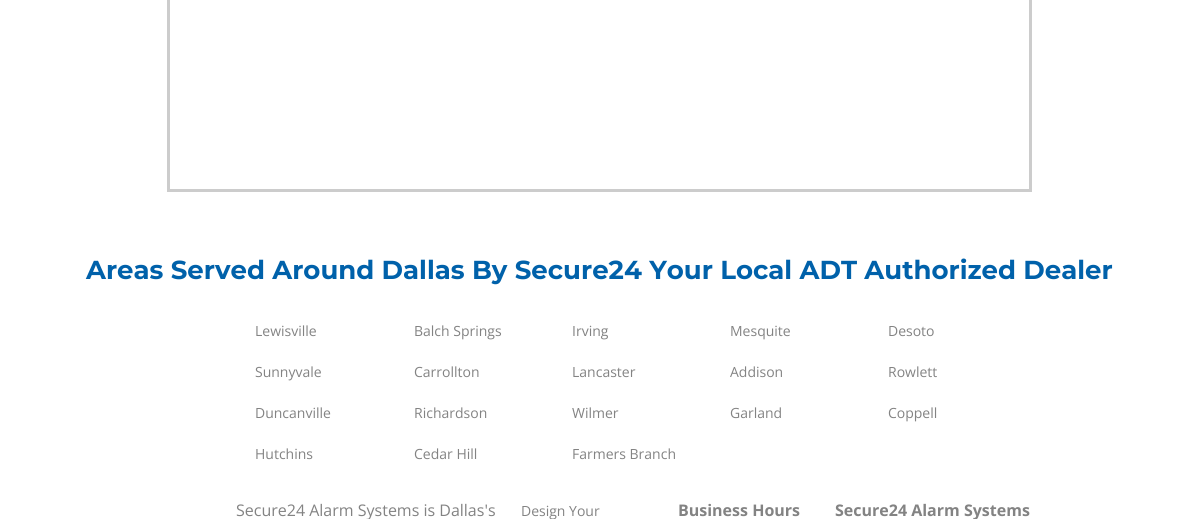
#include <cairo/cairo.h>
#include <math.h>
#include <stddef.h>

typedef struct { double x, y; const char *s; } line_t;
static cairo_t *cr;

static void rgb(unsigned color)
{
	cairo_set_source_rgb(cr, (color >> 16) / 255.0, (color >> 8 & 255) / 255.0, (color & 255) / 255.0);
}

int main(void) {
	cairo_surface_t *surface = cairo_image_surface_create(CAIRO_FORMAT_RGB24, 1199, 519);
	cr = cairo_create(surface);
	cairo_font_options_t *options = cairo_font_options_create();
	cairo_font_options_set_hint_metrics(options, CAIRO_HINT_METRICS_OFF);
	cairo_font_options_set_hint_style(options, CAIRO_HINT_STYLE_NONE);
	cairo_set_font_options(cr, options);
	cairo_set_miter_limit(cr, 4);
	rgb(0xffffff);
	cairo_paint(cr);
	cairo_rectangle(cr, 168.5, -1.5, 862, 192);
	rgb(0xcccccc);
	cairo_set_line_width(cr, 3);
	cairo_stroke(cr);
	cairo_select_font_face(cr, "Montserrat", CAIRO_FONT_SLANT_NORMAL, CAIRO_FONT_WEIGHT_BOLD);
	cairo_set_font_size(cr, 26);
	rgb(0x0061aa);
	cairo_move_to(cr, 86, 279);
	cairo_show_text(cr, "Areas Served Around Dallas By Secure24 Your Local ADT Authorized Dealer");
	cairo_select_font_face(cr, "Open Sans", CAIRO_FONT_SLANT_NORMAL, CAIRO_FONT_WEIGHT_NORMAL);
	cairo_set_font_size(cr, 14);
	rgb(0x838383);
	{
		static const line_t items[] = {
			{255, 336, "Lewisville"},
			{414, 336, "Balch Springs"},
			{572, 336, "Irving"},
			{730, 336, "Mesquite"},
			{888, 336, "Desoto"},
			{255, 377, "Sunnyvale"},
			{414, 377, "Carrollton"},
			{572, 377, "Lancaster"},
			{730, 377, "Addison"},
			{888, 377, "Rowlett"},
			{255, 418, "Duncanville"},
			{414, 418, "Richardson"},
			{572, 418, "Wilmer"},
			{730, 418, "Garland"},
			{888, 418, "Coppell"},
			{255, 459, "Hutchins"},
			{414, 459, "Cedar Hill"},
			{572, 459, "Farmers Branch"},
		};
		for (size_t i = 0; i < sizeof items / sizeof *items; i++) {
			cairo_move_to(cr, items[i].x, items[i].y);
			cairo_show_text(cr, items[i].s);
		}
	}
	cairo_set_font_size(cr, 16);
	cairo_move_to(cr, 236, 516);
	cairo_show_text(cr, "Secure24 Alarm Systems is Dallas's");
	cairo_set_font_size(cr, 14);
	cairo_move_to(cr, 521, 516);
	cairo_show_text(cr, "Design Your");
	cairo_select_font_face(cr, "Open Sans", CAIRO_FONT_SLANT_NORMAL, CAIRO_FONT_WEIGHT_BOLD);
	cairo_set_font_size(cr, 16);
	cairo_move_to(cr, 678, 516);
	cairo_show_text(cr, "Business Hours");
	cairo_move_to(cr, 835, 516);
	cairo_show_text(cr, "Secure24 Alarm Systems");
	cairo_surface_write_to_png(surface, "page.png");
	cairo_font_options_destroy(options);
	cairo_destroy(cr);
	cairo_surface_destroy(surface);
	return 0;
}
